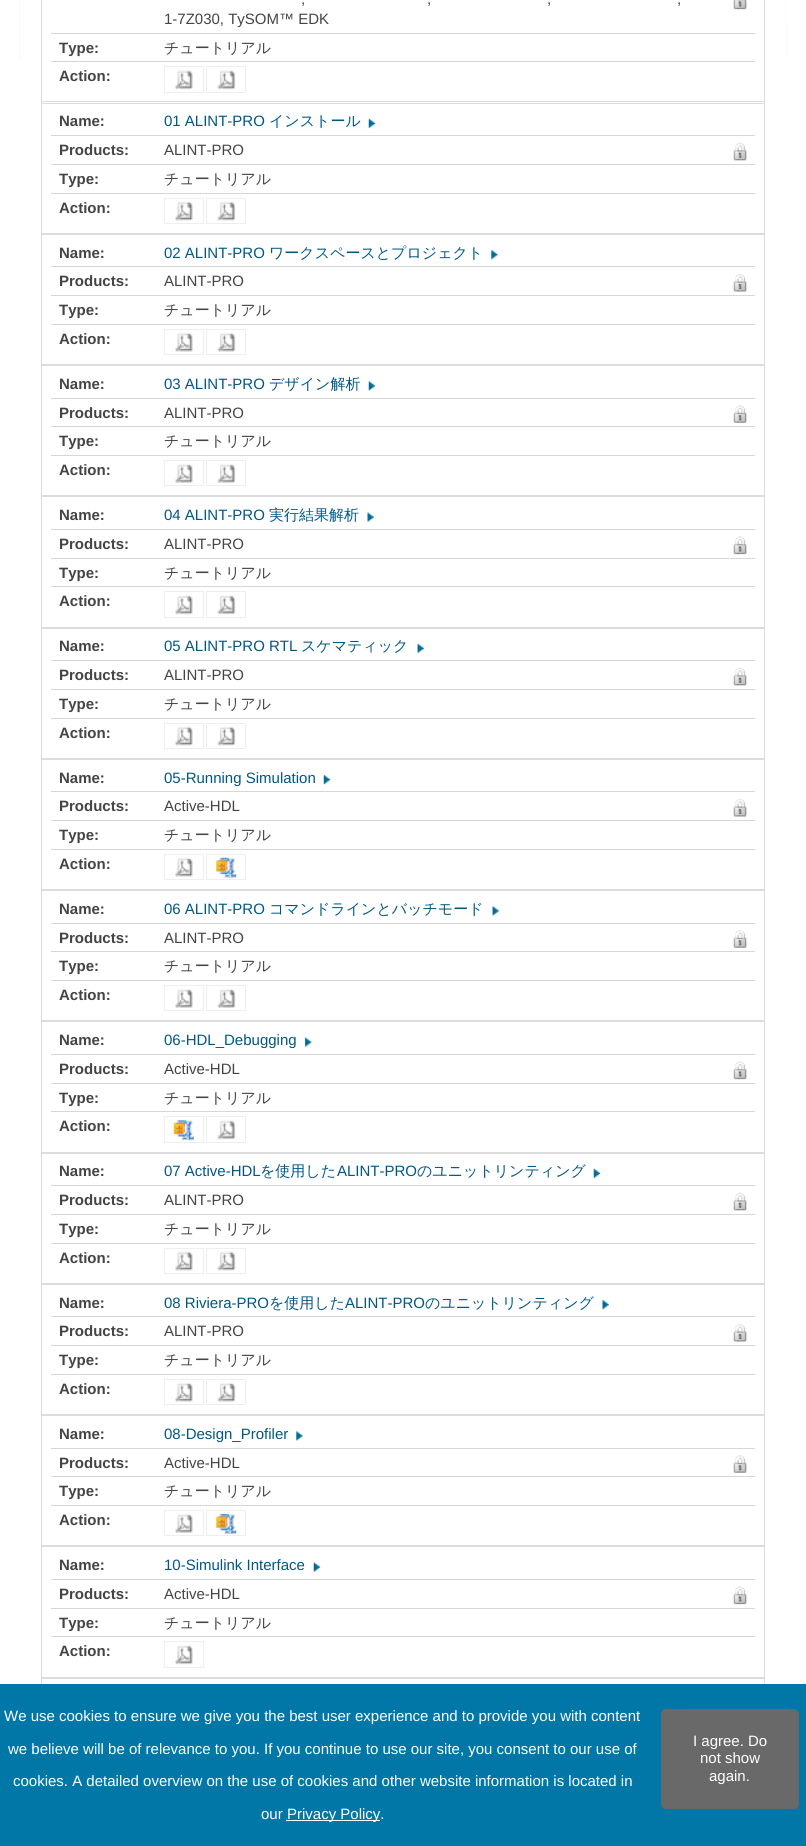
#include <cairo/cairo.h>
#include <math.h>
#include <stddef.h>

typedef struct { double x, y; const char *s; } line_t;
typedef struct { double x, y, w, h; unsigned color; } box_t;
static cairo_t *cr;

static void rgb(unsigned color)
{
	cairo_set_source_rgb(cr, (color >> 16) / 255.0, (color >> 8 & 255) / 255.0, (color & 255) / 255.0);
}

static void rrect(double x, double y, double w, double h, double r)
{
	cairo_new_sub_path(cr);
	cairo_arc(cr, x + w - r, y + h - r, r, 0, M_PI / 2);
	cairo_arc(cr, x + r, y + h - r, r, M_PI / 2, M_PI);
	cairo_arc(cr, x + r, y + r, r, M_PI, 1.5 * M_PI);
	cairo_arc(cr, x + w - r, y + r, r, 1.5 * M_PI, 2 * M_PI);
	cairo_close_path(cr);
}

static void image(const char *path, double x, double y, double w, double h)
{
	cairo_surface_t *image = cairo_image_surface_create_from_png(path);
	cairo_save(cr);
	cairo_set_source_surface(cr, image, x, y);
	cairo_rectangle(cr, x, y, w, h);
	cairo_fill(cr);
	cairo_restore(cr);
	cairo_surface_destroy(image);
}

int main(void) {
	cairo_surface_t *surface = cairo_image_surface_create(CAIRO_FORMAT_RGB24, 806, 1846);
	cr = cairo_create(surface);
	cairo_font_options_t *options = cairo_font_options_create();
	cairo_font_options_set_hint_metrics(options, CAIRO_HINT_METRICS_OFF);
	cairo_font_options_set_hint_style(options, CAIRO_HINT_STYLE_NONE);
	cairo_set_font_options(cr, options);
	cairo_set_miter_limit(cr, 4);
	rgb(0xffffff);
	cairo_paint(cr);
	image("img/1.png", 19, 0, 768, 59);
	{
		static const box_t items[] = {
			{764, 0, 1, 103, 0xdcdcdc},
			{41, 101, 724, 1, 0xdcdcdc},
			{41, 0, 1, 103, 0xdcdcdc},
			{51, 33, 704, 1, 0xd7d7d7},
		};
		for (size_t i = 0; i < sizeof items / sizeof *items; i++) {
			rgb(items[i].color);
			cairo_rectangle(cr, items[i].x, items[i].y, items[i].w, items[i].h);
			cairo_fill(cr);
		}
	}
	image("img/2.png", 733, 0, 14, 10);
	cairo_rectangle(cr, 51, 61, 704, 1);
	cairo_fill(cr);
	image("img/3.png", 175, 70, 18, 20);
	cairo_rectangle(cr, 164.5, 66.5, 39, 26);
	rgb(0xeeeeee);
	cairo_set_line_width(cr, 1);
	cairo_stroke(cr);
	image("img/4.png", 217, 70, 19, 20);
	cairo_rectangle(cr, 206.5, 66.5, 39, 26);
	cairo_stroke(cr);
	cairo_rectangle(cr, 41.5, 103.5, 723, 130);
	rgb(0xdcdcdc);
	cairo_stroke(cr);
	rgb(0xd7d7d7);
	cairo_rectangle(cr, 51, 135, 704, 1);
	cairo_fill(cr);
	image("img/5.png", 368, 118, 8, 11);
	cairo_rectangle(cr, 51, 164, 704, 1);
	cairo_fill(cr);
	image("img/6.png", 733, 142, 14, 19);
	cairo_rectangle(cr, 51, 193, 704, 1);
	cairo_fill(cr);
	image("img/7.png", 175, 201, 18, 20);
	cairo_rectangle(cr, 164.5, 198.5, 39, 25);
	rgb(0xeeeeee);
	cairo_stroke(cr);
	image("img/8.png", 217, 201, 19, 20);
	cairo_rectangle(cr, 206.5, 198.5, 39, 25);
	cairo_stroke(cr);
	cairo_rectangle(cr, 41.5, 234.5, 723, 130);
	rgb(0xdcdcdc);
	cairo_stroke(cr);
	rgb(0xd7d7d7);
	cairo_rectangle(cr, 51, 266, 704, 1);
	cairo_fill(cr);
	image("img/9.png", 491, 249, 7, 11);
	cairo_rectangle(cr, 51, 295, 704, 1);
	cairo_fill(cr);
	image("img/10.png", 733, 274, 14, 18);
	cairo_rectangle(cr, 51, 324, 704, 1);
	cairo_fill(cr);
	image("img/11.png", 175, 332, 18, 20);
	cairo_rectangle(cr, 164.5, 329.5, 39, 25);
	rgb(0xeeeeee);
	cairo_stroke(cr);
	image("img/12.png", 217, 332, 19, 20);
	cairo_rectangle(cr, 206.5, 329.5, 39, 25);
	cairo_stroke(cr);
	cairo_rectangle(cr, 41.5, 365.5, 723, 130);
	rgb(0xdcdcdc);
	cairo_stroke(cr);
	rgb(0xd7d7d7);
	cairo_rectangle(cr, 51, 398, 704, 1);
	cairo_fill(cr);
	image("img/13.png", 368, 380, 8, 12);
	cairo_rectangle(cr, 51, 426, 704, 1);
	cairo_fill(cr);
	image("img/14.png", 733, 405, 14, 18);
	cairo_rectangle(cr, 51, 455, 704, 1);
	cairo_fill(cr);
	image("img/15.png", 175, 464, 18, 19);
	cairo_rectangle(cr, 164.5, 460.5, 39, 25);
	rgb(0xeeeeee);
	cairo_stroke(cr);
	image("img/16.png", 217, 464, 19, 19);
	cairo_rectangle(cr, 206.5, 460.5, 39, 25);
	cairo_stroke(cr);
	cairo_rectangle(cr, 41.5, 496.5, 723, 131);
	rgb(0xdcdcdc);
	cairo_stroke(cr);
	rgb(0xd7d7d7);
	cairo_rectangle(cr, 51, 529, 704, 1);
	cairo_fill(cr);
	image("img/17.png", 367, 511, 7, 12);
	cairo_rectangle(cr, 51, 558, 704, 1);
	cairo_fill(cr);
	image("img/18.png", 733, 536, 14, 19);
	cairo_rectangle(cr, 51, 586, 704, 1);
	cairo_fill(cr);
	image("img/3.png", 175, 595, 18, 20);
	cairo_rectangle(cr, 164.5, 591.5, 39, 26);
	rgb(0xeeeeee);
	cairo_stroke(cr);
	image("img/4.png", 217, 595, 19, 20);
	cairo_rectangle(cr, 206.5, 591.5, 39, 26);
	cairo_stroke(cr);
	cairo_rectangle(cr, 41.5, 628.5, 723, 130);
	rgb(0xdcdcdc);
	cairo_stroke(cr);
	rgb(0xd7d7d7);
	cairo_rectangle(cr, 51, 660, 704, 1);
	cairo_fill(cr);
	image("img/19.png", 417, 643, 7, 11);
	cairo_rectangle(cr, 51, 689, 704, 1);
	cairo_fill(cr);
	image("img/6.png", 733, 667, 14, 19);
	cairo_rectangle(cr, 51, 718, 704, 1);
	cairo_fill(cr);
	image("img/7.png", 175, 726, 18, 20);
	cairo_rectangle(cr, 164.5, 723.5, 39, 25);
	rgb(0xeeeeee);
	cairo_stroke(cr);
	image("img/8.png", 217, 726, 19, 20);
	cairo_rectangle(cr, 206.5, 723.5, 39, 25);
	cairo_stroke(cr);
	cairo_rectangle(cr, 41.5, 759.5, 723, 130);
	rgb(0xdcdcdc);
	cairo_stroke(cr);
	rgb(0xd7d7d7);
	cairo_rectangle(cr, 51, 791, 704, 1);
	cairo_fill(cr);
	image("img/20.png", 323, 774, 8, 11);
	cairo_rectangle(cr, 51, 820, 704, 1);
	cairo_fill(cr);
	image("img/10.png", 733, 799, 14, 18);
	cairo_rectangle(cr, 51, 849, 704, 1);
	cairo_fill(cr);
	image("img/11.png", 175, 857, 18, 20);
	cairo_rectangle(cr, 164.5, 854.5, 39, 25);
	rgb(0xeeeeee);
	cairo_stroke(cr);
	image("img/21.png", 216, 857, 21, 21);
	cairo_rectangle(cr, 206.5, 854.5, 39, 25);
	cairo_stroke(cr);
	cairo_rectangle(cr, 41.5, 890.5, 723, 130);
	rgb(0xdcdcdc);
	cairo_stroke(cr);
	rgb(0xd7d7d7);
	cairo_rectangle(cr, 51, 923, 704, 1);
	cairo_fill(cr);
	image("img/22.png", 492, 905, 7, 12);
	cairo_rectangle(cr, 51, 951, 704, 1);
	cairo_fill(cr);
	image("img/14.png", 733, 930, 14, 18);
	cairo_rectangle(cr, 51, 980, 704, 1);
	cairo_fill(cr);
	image("img/15.png", 175, 989, 18, 19);
	cairo_rectangle(cr, 164.5, 985.5, 39, 25);
	rgb(0xeeeeee);
	cairo_stroke(cr);
	image("img/16.png", 217, 989, 19, 19);
	cairo_rectangle(cr, 206.5, 985.5, 39, 25);
	cairo_stroke(cr);
	cairo_rectangle(cr, 41.5, 1021.5, 723, 131);
	rgb(0xdcdcdc);
	cairo_stroke(cr);
	rgb(0xd7d7d7);
	cairo_rectangle(cr, 51, 1054, 704, 1);
	cairo_fill(cr);
	image("img/23.png", 304, 1036, 8, 12);
	cairo_rectangle(cr, 51, 1083, 704, 1);
	cairo_fill(cr);
	image("img/18.png", 733, 1061, 14, 19);
	cairo_rectangle(cr, 51, 1111, 704, 1);
	cairo_fill(cr);
	image("img/24.png", 173, 1120, 21, 21);
	cairo_rectangle(cr, 164.5, 1116.5, 39, 26);
	rgb(0xeeeeee);
	cairo_stroke(cr);
	image("img/4.png", 217, 1120, 19, 20);
	cairo_rectangle(cr, 206.5, 1116.5, 39, 26);
	cairo_stroke(cr);
	cairo_rectangle(cr, 41.5, 1153.5, 723, 130);
	rgb(0xdcdcdc);
	cairo_stroke(cr);
	rgb(0xd7d7d7);
	cairo_rectangle(cr, 51, 1185, 704, 1);
	cairo_fill(cr);
	image("img/5.png", 593, 1168, 8, 11);
	cairo_rectangle(cr, 51, 1214, 704, 1);
	cairo_fill(cr);
	image("img/6.png", 733, 1192, 14, 19);
	cairo_rectangle(cr, 51, 1243, 704, 1);
	cairo_fill(cr);
	image("img/7.png", 175, 1251, 18, 20);
	cairo_rectangle(cr, 164.5, 1248.5, 39, 25);
	rgb(0xeeeeee);
	cairo_stroke(cr);
	image("img/8.png", 217, 1251, 19, 20);
	cairo_rectangle(cr, 206.5, 1248.5, 39, 25);
	cairo_stroke(cr);
	cairo_rectangle(cr, 41.5, 1284.5, 723, 130);
	rgb(0xdcdcdc);
	cairo_stroke(cr);
	rgb(0xd7d7d7);
	cairo_rectangle(cr, 51, 1316, 704, 1);
	cairo_fill(cr);
	image("img/25.png", 602, 1299, 7, 11);
	cairo_rectangle(cr, 51, 1345, 704, 1);
	cairo_fill(cr);
	image("img/10.png", 733, 1324, 14, 18);
	cairo_rectangle(cr, 51, 1374, 704, 1);
	cairo_fill(cr);
	image("img/11.png", 175, 1382, 18, 20);
	cairo_rectangle(cr, 164.5, 1379.5, 39, 25);
	rgb(0xeeeeee);
	cairo_stroke(cr);
	image("img/12.png", 217, 1382, 19, 20);
	cairo_rectangle(cr, 206.5, 1379.5, 39, 25);
	cairo_stroke(cr);
	cairo_rectangle(cr, 41.5, 1415.5, 723, 130);
	rgb(0xdcdcdc);
	cairo_stroke(cr);
	rgb(0xd7d7d7);
	cairo_rectangle(cr, 51, 1448, 704, 1);
	cairo_fill(cr);
	image("img/26.png", 296, 1430, 7, 12);
	cairo_rectangle(cr, 51, 1476, 704, 1);
	cairo_fill(cr);
	image("img/14.png", 733, 1455, 14, 18);
	cairo_rectangle(cr, 51, 1505, 704, 1);
	cairo_fill(cr);
	image("img/15.png", 175, 1514, 18, 19);
	cairo_rectangle(cr, 164.5, 1510.5, 39, 25);
	rgb(0xeeeeee);
	cairo_stroke(cr);
	image("img/27.png", 216, 1514, 21, 20);
	cairo_rectangle(cr, 206.5, 1510.5, 39, 25);
	cairo_stroke(cr);
	cairo_rectangle(cr, 41.5, 1546.5, 723, 131);
	rgb(0xdcdcdc);
	cairo_stroke(cr);
	rgb(0xd7d7d7);
	cairo_rectangle(cr, 51, 1579, 704, 1);
	cairo_fill(cr);
	image("img/28.png", 313, 1561, 8, 12);
	cairo_rectangle(cr, 51, 1608, 704, 1);
	cairo_fill(cr);
	image("img/18.png", 733, 1586, 14, 19);
	cairo_rectangle(cr, 51, 1636, 704, 1);
	cairo_fill(cr);
	image("img/3.png", 175, 1645, 18, 20);
	cairo_rectangle(cr, 164.5, 1641.5, 39, 26);
	rgb(0xeeeeee);
	cairo_stroke(cr);
	cairo_rectangle(cr, 41.5, 1678.5, 723, 130);
	rgb(0xdcdcdc);
	cairo_stroke(cr);
	rgb(0x0077a6);
	cairo_rectangle(cr, 0, 1684, 806, 162);
	cairo_fill(cr);
	rgb(0xffffff);
	cairo_rectangle(cr, 286, 1820, 94, 1);
	cairo_fill(cr);
	rgb(0x696969);
	rrect(661, 1709, 138, 100, 5);
	cairo_fill(cr);
	cairo_select_font_face(cr, "Liberation Sans", CAIRO_FONT_SLANT_NORMAL, CAIRO_FONT_WEIGHT_NORMAL);
	cairo_set_font_size(cr, 15);
	rgb(0x444444);
	{
		static const line_t items[] = {
			{301, 4, ","},
			{427, 4, ","},
			{547, 4, ","},
			{677, 4, ","},
			{164, 24, "1-7Z030, TySOM™ EDK"},
		};
		for (size_t i = 0; i < sizeof items / sizeof *items; i++) {
			cairo_move_to(cr, items[i].x, items[i].y);
			cairo_show_text(cr, items[i].s);
		}
	}
	cairo_select_font_face(cr, "Liberation Sans", CAIRO_FONT_SLANT_NORMAL, CAIRO_FONT_WEIGHT_BOLD);
	cairo_move_to(cr, 59, 53);
	cairo_show_text(cr, "Type:");
	cairo_select_font_face(cr, "WenQuanYi Zen Hei Medium", CAIRO_FONT_SLANT_NORMAL, CAIRO_FONT_WEIGHT_NORMAL);
	cairo_move_to(cr, 164, 53);
	cairo_show_text(cr, "チュートリアル");
	cairo_select_font_face(cr, "Liberation Sans", CAIRO_FONT_SLANT_NORMAL, CAIRO_FONT_WEIGHT_BOLD);
	cairo_move_to(cr, 59, 81);
	cairo_show_text(cr, "Action:");
	cairo_move_to(cr, 59, 126);
	cairo_show_text(cr, "Name:");
	cairo_select_font_face(cr, "Liberation Sans", CAIRO_FONT_SLANT_NORMAL, CAIRO_FONT_WEIGHT_NORMAL);
	rgb(0x005784);
	cairo_move_to(cr, 164, 126);
	cairo_show_text(cr, "01 ALINT-PRO");
	cairo_select_font_face(cr, "WenQuanYi Zen Hei Medium", CAIRO_FONT_SLANT_NORMAL, CAIRO_FONT_WEIGHT_NORMAL);
	cairo_move_to(cr, 269, 126);
	cairo_show_text(cr, "インストール");
	cairo_select_font_face(cr, "Liberation Sans", CAIRO_FONT_SLANT_NORMAL, CAIRO_FONT_WEIGHT_BOLD);
	rgb(0x444444);
	cairo_move_to(cr, 59, 155);
	cairo_show_text(cr, "Products:");
	cairo_select_font_face(cr, "Liberation Sans", CAIRO_FONT_SLANT_NORMAL, CAIRO_FONT_WEIGHT_NORMAL);
	cairo_move_to(cr, 164, 155);
	cairo_show_text(cr, "ALINT-PRO");
	cairo_select_font_face(cr, "Liberation Sans", CAIRO_FONT_SLANT_NORMAL, CAIRO_FONT_WEIGHT_BOLD);
	cairo_move_to(cr, 59, 184);
	cairo_show_text(cr, "Type:");
	cairo_select_font_face(cr, "WenQuanYi Zen Hei Medium", CAIRO_FONT_SLANT_NORMAL, CAIRO_FONT_WEIGHT_NORMAL);
	cairo_move_to(cr, 164, 184);
	cairo_show_text(cr, "チュートリアル");
	cairo_select_font_face(cr, "Liberation Sans", CAIRO_FONT_SLANT_NORMAL, CAIRO_FONT_WEIGHT_BOLD);
	cairo_move_to(cr, 59, 213);
	cairo_show_text(cr, "Action:");
	cairo_move_to(cr, 59, 258);
	cairo_show_text(cr, "Name:");
	cairo_select_font_face(cr, "Liberation Sans", CAIRO_FONT_SLANT_NORMAL, CAIRO_FONT_WEIGHT_NORMAL);
	rgb(0x005784);
	cairo_move_to(cr, 164, 258);
	cairo_show_text(cr, "02 ALINT-PRO");
	cairo_select_font_face(cr, "WenQuanYi Zen Hei Medium", CAIRO_FONT_SLANT_NORMAL, CAIRO_FONT_WEIGHT_NORMAL);
	cairo_move_to(cr, 269, 258);
	cairo_show_text(cr, "ワークスペースとプロジェクト");
	cairo_select_font_face(cr, "Liberation Sans", CAIRO_FONT_SLANT_NORMAL, CAIRO_FONT_WEIGHT_BOLD);
	rgb(0x444444);
	cairo_move_to(cr, 59, 286);
	cairo_show_text(cr, "Products:");
	cairo_select_font_face(cr, "Liberation Sans", CAIRO_FONT_SLANT_NORMAL, CAIRO_FONT_WEIGHT_NORMAL);
	cairo_move_to(cr, 164, 286);
	cairo_show_text(cr, "ALINT-PRO");
	cairo_select_font_face(cr, "Liberation Sans", CAIRO_FONT_SLANT_NORMAL, CAIRO_FONT_WEIGHT_BOLD);
	cairo_move_to(cr, 59, 315);
	cairo_show_text(cr, "Type:");
	cairo_select_font_face(cr, "WenQuanYi Zen Hei Medium", CAIRO_FONT_SLANT_NORMAL, CAIRO_FONT_WEIGHT_NORMAL);
	cairo_move_to(cr, 164, 315);
	cairo_show_text(cr, "チュートリアル");
	cairo_select_font_face(cr, "Liberation Sans", CAIRO_FONT_SLANT_NORMAL, CAIRO_FONT_WEIGHT_BOLD);
	cairo_move_to(cr, 59, 344);
	cairo_show_text(cr, "Action:");
	cairo_move_to(cr, 59, 389);
	cairo_show_text(cr, "Name:");
	cairo_select_font_face(cr, "Liberation Sans", CAIRO_FONT_SLANT_NORMAL, CAIRO_FONT_WEIGHT_NORMAL);
	rgb(0x005784);
	cairo_move_to(cr, 164, 389);
	cairo_show_text(cr, "03 ALINT-PRO");
	cairo_select_font_face(cr, "WenQuanYi Zen Hei Medium", CAIRO_FONT_SLANT_NORMAL, CAIRO_FONT_WEIGHT_NORMAL);
	cairo_move_to(cr, 269, 389);
	cairo_show_text(cr, "デザイン解析");
	cairo_select_font_face(cr, "Liberation Sans", CAIRO_FONT_SLANT_NORMAL, CAIRO_FONT_WEIGHT_BOLD);
	rgb(0x444444);
	cairo_move_to(cr, 59, 418);
	cairo_show_text(cr, "Products:");
	cairo_select_font_face(cr, "Liberation Sans", CAIRO_FONT_SLANT_NORMAL, CAIRO_FONT_WEIGHT_NORMAL);
	cairo_move_to(cr, 164, 418);
	cairo_show_text(cr, "ALINT-PRO");
	cairo_select_font_face(cr, "Liberation Sans", CAIRO_FONT_SLANT_NORMAL, CAIRO_FONT_WEIGHT_BOLD);
	cairo_move_to(cr, 59, 446);
	cairo_show_text(cr, "Type:");
	cairo_select_font_face(cr, "WenQuanYi Zen Hei Medium", CAIRO_FONT_SLANT_NORMAL, CAIRO_FONT_WEIGHT_NORMAL);
	cairo_move_to(cr, 164, 446);
	cairo_show_text(cr, "チュートリアル");
	cairo_select_font_face(cr, "Liberation Sans", CAIRO_FONT_SLANT_NORMAL, CAIRO_FONT_WEIGHT_BOLD);
	cairo_move_to(cr, 59, 475);
	cairo_show_text(cr, "Action:");
	cairo_move_to(cr, 59, 520);
	cairo_show_text(cr, "Name:");
	cairo_select_font_face(cr, "Liberation Sans", CAIRO_FONT_SLANT_NORMAL, CAIRO_FONT_WEIGHT_NORMAL);
	rgb(0x005784);
	cairo_move_to(cr, 164, 520);
	cairo_show_text(cr, "04 ALINT-PRO");
	cairo_select_font_face(cr, "WenQuanYi Zen Hei Medium", CAIRO_FONT_SLANT_NORMAL, CAIRO_FONT_WEIGHT_NORMAL);
	cairo_move_to(cr, 269, 520);
	cairo_show_text(cr, "実行結果解析");
	cairo_select_font_face(cr, "Liberation Sans", CAIRO_FONT_SLANT_NORMAL, CAIRO_FONT_WEIGHT_BOLD);
	rgb(0x444444);
	cairo_move_to(cr, 59, 549);
	cairo_show_text(cr, "Products:");
	cairo_select_font_face(cr, "Liberation Sans", CAIRO_FONT_SLANT_NORMAL, CAIRO_FONT_WEIGHT_NORMAL);
	cairo_move_to(cr, 164, 549);
	cairo_show_text(cr, "ALINT-PRO");
	cairo_select_font_face(cr, "Liberation Sans", CAIRO_FONT_SLANT_NORMAL, CAIRO_FONT_WEIGHT_BOLD);
	cairo_move_to(cr, 59, 578);
	cairo_show_text(cr, "Type:");
	cairo_select_font_face(cr, "WenQuanYi Zen Hei Medium", CAIRO_FONT_SLANT_NORMAL, CAIRO_FONT_WEIGHT_NORMAL);
	cairo_move_to(cr, 164, 578);
	cairo_show_text(cr, "チュートリアル");
	cairo_select_font_face(cr, "Liberation Sans", CAIRO_FONT_SLANT_NORMAL, CAIRO_FONT_WEIGHT_BOLD);
	cairo_move_to(cr, 59, 606);
	cairo_show_text(cr, "Action:");
	cairo_move_to(cr, 59, 651);
	cairo_show_text(cr, "Name:");
	cairo_select_font_face(cr, "Liberation Sans", CAIRO_FONT_SLANT_NORMAL, CAIRO_FONT_WEIGHT_NORMAL);
	rgb(0x005784);
	cairo_move_to(cr, 164, 651);
	cairo_show_text(cr, "05 ALINT-PRO RTL");
	cairo_select_font_face(cr, "WenQuanYi Zen Hei Medium", CAIRO_FONT_SLANT_NORMAL, CAIRO_FONT_WEIGHT_NORMAL);
	cairo_move_to(cr, 301, 651);
	cairo_show_text(cr, "スケマティック");
	cairo_select_font_face(cr, "Liberation Sans", CAIRO_FONT_SLANT_NORMAL, CAIRO_FONT_WEIGHT_BOLD);
	rgb(0x444444);
	cairo_move_to(cr, 59, 680);
	cairo_show_text(cr, "Products:");
	cairo_select_font_face(cr, "Liberation Sans", CAIRO_FONT_SLANT_NORMAL, CAIRO_FONT_WEIGHT_NORMAL);
	cairo_move_to(cr, 164, 680);
	cairo_show_text(cr, "ALINT-PRO");
	cairo_select_font_face(cr, "Liberation Sans", CAIRO_FONT_SLANT_NORMAL, CAIRO_FONT_WEIGHT_BOLD);
	cairo_move_to(cr, 59, 709);
	cairo_show_text(cr, "Type:");
	cairo_select_font_face(cr, "WenQuanYi Zen Hei Medium", CAIRO_FONT_SLANT_NORMAL, CAIRO_FONT_WEIGHT_NORMAL);
	cairo_move_to(cr, 164, 709);
	cairo_show_text(cr, "チュートリアル");
	cairo_select_font_face(cr, "Liberation Sans", CAIRO_FONT_SLANT_NORMAL, CAIRO_FONT_WEIGHT_BOLD);
	cairo_move_to(cr, 59, 738);
	cairo_show_text(cr, "Action:");
	cairo_move_to(cr, 59, 783);
	cairo_show_text(cr, "Name:");
	cairo_select_font_face(cr, "Liberation Sans", CAIRO_FONT_SLANT_NORMAL, CAIRO_FONT_WEIGHT_NORMAL);
	rgb(0x005784);
	cairo_move_to(cr, 164, 783);
	cairo_show_text(cr, "05-Running Simulation");
	cairo_select_font_face(cr, "Liberation Sans", CAIRO_FONT_SLANT_NORMAL, CAIRO_FONT_WEIGHT_BOLD);
	rgb(0x444444);
	cairo_move_to(cr, 59, 811);
	cairo_show_text(cr, "Products:");
	cairo_select_font_face(cr, "Liberation Sans", CAIRO_FONT_SLANT_NORMAL, CAIRO_FONT_WEIGHT_NORMAL);
	cairo_move_to(cr, 164, 811);
	cairo_show_text(cr, "Active-HDL");
	cairo_select_font_face(cr, "Liberation Sans", CAIRO_FONT_SLANT_NORMAL, CAIRO_FONT_WEIGHT_BOLD);
	cairo_move_to(cr, 59, 840);
	cairo_show_text(cr, "Type:");
	cairo_select_font_face(cr, "WenQuanYi Zen Hei Medium", CAIRO_FONT_SLANT_NORMAL, CAIRO_FONT_WEIGHT_NORMAL);
	cairo_move_to(cr, 164, 840);
	cairo_show_text(cr, "チュートリアル");
	cairo_select_font_face(cr, "Liberation Sans", CAIRO_FONT_SLANT_NORMAL, CAIRO_FONT_WEIGHT_BOLD);
	cairo_move_to(cr, 59, 869);
	cairo_show_text(cr, "Action:");
	cairo_move_to(cr, 59, 914);
	cairo_show_text(cr, "Name:");
	cairo_select_font_face(cr, "Liberation Sans", CAIRO_FONT_SLANT_NORMAL, CAIRO_FONT_WEIGHT_NORMAL);
	rgb(0x005784);
	cairo_move_to(cr, 164, 914);
	cairo_show_text(cr, "06 ALINT-PRO");
	cairo_select_font_face(cr, "WenQuanYi Zen Hei Medium", CAIRO_FONT_SLANT_NORMAL, CAIRO_FONT_WEIGHT_NORMAL);
	cairo_move_to(cr, 269, 914);
	cairo_show_text(cr, "コマンドラインとバッチモード");
	cairo_select_font_face(cr, "Liberation Sans", CAIRO_FONT_SLANT_NORMAL, CAIRO_FONT_WEIGHT_BOLD);
	rgb(0x444444);
	cairo_move_to(cr, 59, 943);
	cairo_show_text(cr, "Products:");
	cairo_select_font_face(cr, "Liberation Sans", CAIRO_FONT_SLANT_NORMAL, CAIRO_FONT_WEIGHT_NORMAL);
	cairo_move_to(cr, 164, 943);
	cairo_show_text(cr, "ALINT-PRO");
	cairo_select_font_face(cr, "Liberation Sans", CAIRO_FONT_SLANT_NORMAL, CAIRO_FONT_WEIGHT_BOLD);
	cairo_move_to(cr, 59, 971);
	cairo_show_text(cr, "Type:");
	cairo_select_font_face(cr, "WenQuanYi Zen Hei Medium", CAIRO_FONT_SLANT_NORMAL, CAIRO_FONT_WEIGHT_NORMAL);
	cairo_move_to(cr, 164, 971);
	cairo_show_text(cr, "チュートリアル");
	cairo_select_font_face(cr, "Liberation Sans", CAIRO_FONT_SLANT_NORMAL, CAIRO_FONT_WEIGHT_BOLD);
	cairo_move_to(cr, 59, 1000);
	cairo_show_text(cr, "Action:");
	cairo_move_to(cr, 59, 1045);
	cairo_show_text(cr, "Name:");
	cairo_select_font_face(cr, "Liberation Sans", CAIRO_FONT_SLANT_NORMAL, CAIRO_FONT_WEIGHT_NORMAL);
	rgb(0x005784);
	cairo_move_to(cr, 164, 1045);
	cairo_show_text(cr, "06-HDL_Debugging");
	cairo_select_font_face(cr, "Liberation Sans", CAIRO_FONT_SLANT_NORMAL, CAIRO_FONT_WEIGHT_BOLD);
	rgb(0x444444);
	cairo_move_to(cr, 59, 1074);
	cairo_show_text(cr, "Products:");
	cairo_select_font_face(cr, "Liberation Sans", CAIRO_FONT_SLANT_NORMAL, CAIRO_FONT_WEIGHT_NORMAL);
	cairo_move_to(cr, 164, 1074);
	cairo_show_text(cr, "Active-HDL");
	cairo_select_font_face(cr, "Liberation Sans", CAIRO_FONT_SLANT_NORMAL, CAIRO_FONT_WEIGHT_BOLD);
	cairo_move_to(cr, 59, 1103);
	cairo_show_text(cr, "Type:");
	cairo_select_font_face(cr, "WenQuanYi Zen Hei Medium", CAIRO_FONT_SLANT_NORMAL, CAIRO_FONT_WEIGHT_NORMAL);
	cairo_move_to(cr, 164, 1103);
	cairo_show_text(cr, "チュートリアル");
	cairo_select_font_face(cr, "Liberation Sans", CAIRO_FONT_SLANT_NORMAL, CAIRO_FONT_WEIGHT_BOLD);
	cairo_move_to(cr, 59, 1131);
	cairo_show_text(cr, "Action:");
	cairo_move_to(cr, 59, 1176);
	cairo_show_text(cr, "Name:");
	cairo_select_font_face(cr, "Liberation Sans", CAIRO_FONT_SLANT_NORMAL, CAIRO_FONT_WEIGHT_NORMAL);
	rgb(0x005784);
	cairo_move_to(cr, 164, 1176);
	cairo_show_text(cr, "07 Active-HDL");
	cairo_select_font_face(cr, "WenQuanYi Zen Hei Medium", CAIRO_FONT_SLANT_NORMAL, CAIRO_FONT_WEIGHT_NORMAL);
	cairo_move_to(cr, 260, 1176);
	cairo_show_text(cr, "を使用した");
	cairo_select_font_face(cr, "Liberation Sans", CAIRO_FONT_SLANT_NORMAL, CAIRO_FONT_WEIGHT_NORMAL);
	cairo_move_to(cr, 337, 1176);
	cairo_show_text(cr, "ALINT-PRO");
	cairo_select_font_face(cr, "WenQuanYi Zen Hei Medium", CAIRO_FONT_SLANT_NORMAL, CAIRO_FONT_WEIGHT_NORMAL);
	cairo_move_to(cr, 417, 1176);
	cairo_show_text(cr, "のユニットリンティング");
	cairo_select_font_face(cr, "Liberation Sans", CAIRO_FONT_SLANT_NORMAL, CAIRO_FONT_WEIGHT_BOLD);
	rgb(0x444444);
	cairo_move_to(cr, 59, 1205);
	cairo_show_text(cr, "Products:");
	cairo_select_font_face(cr, "Liberation Sans", CAIRO_FONT_SLANT_NORMAL, CAIRO_FONT_WEIGHT_NORMAL);
	cairo_move_to(cr, 164, 1205);
	cairo_show_text(cr, "ALINT-PRO");
	cairo_select_font_face(cr, "Liberation Sans", CAIRO_FONT_SLANT_NORMAL, CAIRO_FONT_WEIGHT_BOLD);
	cairo_move_to(cr, 59, 1234);
	cairo_show_text(cr, "Type:");
	cairo_select_font_face(cr, "WenQuanYi Zen Hei Medium", CAIRO_FONT_SLANT_NORMAL, CAIRO_FONT_WEIGHT_NORMAL);
	cairo_move_to(cr, 164, 1234);
	cairo_show_text(cr, "チュートリアル");
	cairo_select_font_face(cr, "Liberation Sans", CAIRO_FONT_SLANT_NORMAL, CAIRO_FONT_WEIGHT_BOLD);
	cairo_move_to(cr, 59, 1263);
	cairo_show_text(cr, "Action:");
	cairo_move_to(cr, 59, 1308);
	cairo_show_text(cr, "Name:");
	cairo_select_font_face(cr, "Liberation Sans", CAIRO_FONT_SLANT_NORMAL, CAIRO_FONT_WEIGHT_NORMAL);
	rgb(0x005784);
	cairo_move_to(cr, 164, 1308);
	cairo_show_text(cr, "08 Riviera-PRO");
	cairo_select_font_face(cr, "WenQuanYi Zen Hei Medium", CAIRO_FONT_SLANT_NORMAL, CAIRO_FONT_WEIGHT_NORMAL);
	cairo_move_to(cr, 269, 1308);
	cairo_show_text(cr, "を使用した");
	cairo_select_font_face(cr, "Liberation Sans", CAIRO_FONT_SLANT_NORMAL, CAIRO_FONT_WEIGHT_NORMAL);
	cairo_move_to(cr, 345, 1308);
	cairo_show_text(cr, "ALINT-PRO");
	cairo_select_font_face(cr, "WenQuanYi Zen Hei Medium", CAIRO_FONT_SLANT_NORMAL, CAIRO_FONT_WEIGHT_NORMAL);
	cairo_move_to(cr, 425, 1308);
	cairo_show_text(cr, "のユニットリンティング");
	cairo_select_font_face(cr, "Liberation Sans", CAIRO_FONT_SLANT_NORMAL, CAIRO_FONT_WEIGHT_BOLD);
	rgb(0x444444);
	cairo_move_to(cr, 59, 1336);
	cairo_show_text(cr, "Products:");
	cairo_select_font_face(cr, "Liberation Sans", CAIRO_FONT_SLANT_NORMAL, CAIRO_FONT_WEIGHT_NORMAL);
	cairo_move_to(cr, 164, 1336);
	cairo_show_text(cr, "ALINT-PRO");
	cairo_select_font_face(cr, "Liberation Sans", CAIRO_FONT_SLANT_NORMAL, CAIRO_FONT_WEIGHT_BOLD);
	cairo_move_to(cr, 59, 1365);
	cairo_show_text(cr, "Type:");
	cairo_select_font_face(cr, "WenQuanYi Zen Hei Medium", CAIRO_FONT_SLANT_NORMAL, CAIRO_FONT_WEIGHT_NORMAL);
	cairo_move_to(cr, 164, 1365);
	cairo_show_text(cr, "チュートリアル");
	cairo_select_font_face(cr, "Liberation Sans", CAIRO_FONT_SLANT_NORMAL, CAIRO_FONT_WEIGHT_BOLD);
	cairo_move_to(cr, 59, 1394);
	cairo_show_text(cr, "Action:");
	cairo_move_to(cr, 59, 1439);
	cairo_show_text(cr, "Name:");
	cairo_select_font_face(cr, "Liberation Sans", CAIRO_FONT_SLANT_NORMAL, CAIRO_FONT_WEIGHT_NORMAL);
	rgb(0x005784);
	cairo_move_to(cr, 164, 1439);
	cairo_show_text(cr, "08-Design_Profiler");
	cairo_select_font_face(cr, "Liberation Sans", CAIRO_FONT_SLANT_NORMAL, CAIRO_FONT_WEIGHT_BOLD);
	rgb(0x444444);
	cairo_move_to(cr, 59, 1468);
	cairo_show_text(cr, "Products:");
	cairo_select_font_face(cr, "Liberation Sans", CAIRO_FONT_SLANT_NORMAL, CAIRO_FONT_WEIGHT_NORMAL);
	cairo_move_to(cr, 164, 1468);
	cairo_show_text(cr, "Active-HDL");
	cairo_select_font_face(cr, "Liberation Sans", CAIRO_FONT_SLANT_NORMAL, CAIRO_FONT_WEIGHT_BOLD);
	cairo_move_to(cr, 59, 1496);
	cairo_show_text(cr, "Type:");
	cairo_select_font_face(cr, "WenQuanYi Zen Hei Medium", CAIRO_FONT_SLANT_NORMAL, CAIRO_FONT_WEIGHT_NORMAL);
	cairo_move_to(cr, 164, 1496);
	cairo_show_text(cr, "チュートリアル");
	cairo_select_font_face(cr, "Liberation Sans", CAIRO_FONT_SLANT_NORMAL, CAIRO_FONT_WEIGHT_BOLD);
	cairo_move_to(cr, 59, 1525);
	cairo_show_text(cr, "Action:");
	cairo_move_to(cr, 59, 1570);
	cairo_show_text(cr, "Name:");
	cairo_select_font_face(cr, "Liberation Sans", CAIRO_FONT_SLANT_NORMAL, CAIRO_FONT_WEIGHT_NORMAL);
	rgb(0x005784);
	cairo_move_to(cr, 164, 1570);
	cairo_show_text(cr, "10-Simulink Interface");
	cairo_select_font_face(cr, "Liberation Sans", CAIRO_FONT_SLANT_NORMAL, CAIRO_FONT_WEIGHT_BOLD);
	rgb(0x444444);
	cairo_move_to(cr, 59, 1599);
	cairo_show_text(cr, "Products:");
	cairo_select_font_face(cr, "Liberation Sans", CAIRO_FONT_SLANT_NORMAL, CAIRO_FONT_WEIGHT_NORMAL);
	cairo_move_to(cr, 164, 1599);
	cairo_show_text(cr, "Active-HDL");
	cairo_select_font_face(cr, "Liberation Sans", CAIRO_FONT_SLANT_NORMAL, CAIRO_FONT_WEIGHT_BOLD);
	cairo_move_to(cr, 59, 1628);
	cairo_show_text(cr, "Type:");
	cairo_select_font_face(cr, "WenQuanYi Zen Hei Medium", CAIRO_FONT_SLANT_NORMAL, CAIRO_FONT_WEIGHT_NORMAL);
	cairo_move_to(cr, 164, 1628);
	cairo_show_text(cr, "チュートリアル");
	cairo_select_font_face(cr, "Liberation Sans", CAIRO_FONT_SLANT_NORMAL, CAIRO_FONT_WEIGHT_BOLD);
	cairo_move_to(cr, 59, 1656);
	cairo_show_text(cr, "Action:");
	cairo_select_font_face(cr, "Liberation Sans", CAIRO_FONT_SLANT_NORMAL, CAIRO_FONT_WEIGHT_NORMAL);
	rgb(0xffffff);
	{
		static const line_t items[] = {
			{4, 1721, "We use cookies to ensure we give you the best user experience and to provide you with content"},
			{8, 1754, "we believe will be of relevance to you. If you continue to use our site, you consent to our use of"},
			{13, 1786, "cookies. A detailed overview on the use of cookies and other website information is located in"},
			{261, 1819, "our"},
			{287, 1819, "Privacy Policy."},
			{693, 1746, "I agree. Do"},
			{700, 1763, "not show"},
			{709, 1781, "again."},
		};
		for (size_t i = 0; i < sizeof items / sizeof *items; i++) {
			cairo_move_to(cr, items[i].x, items[i].y);
			cairo_show_text(cr, items[i].s);
		}
	}
	cairo_surface_write_to_png(surface, "page.png");
	cairo_font_options_destroy(options);
	cairo_destroy(cr);
	cairo_surface_destroy(surface);
	return 0;
}
